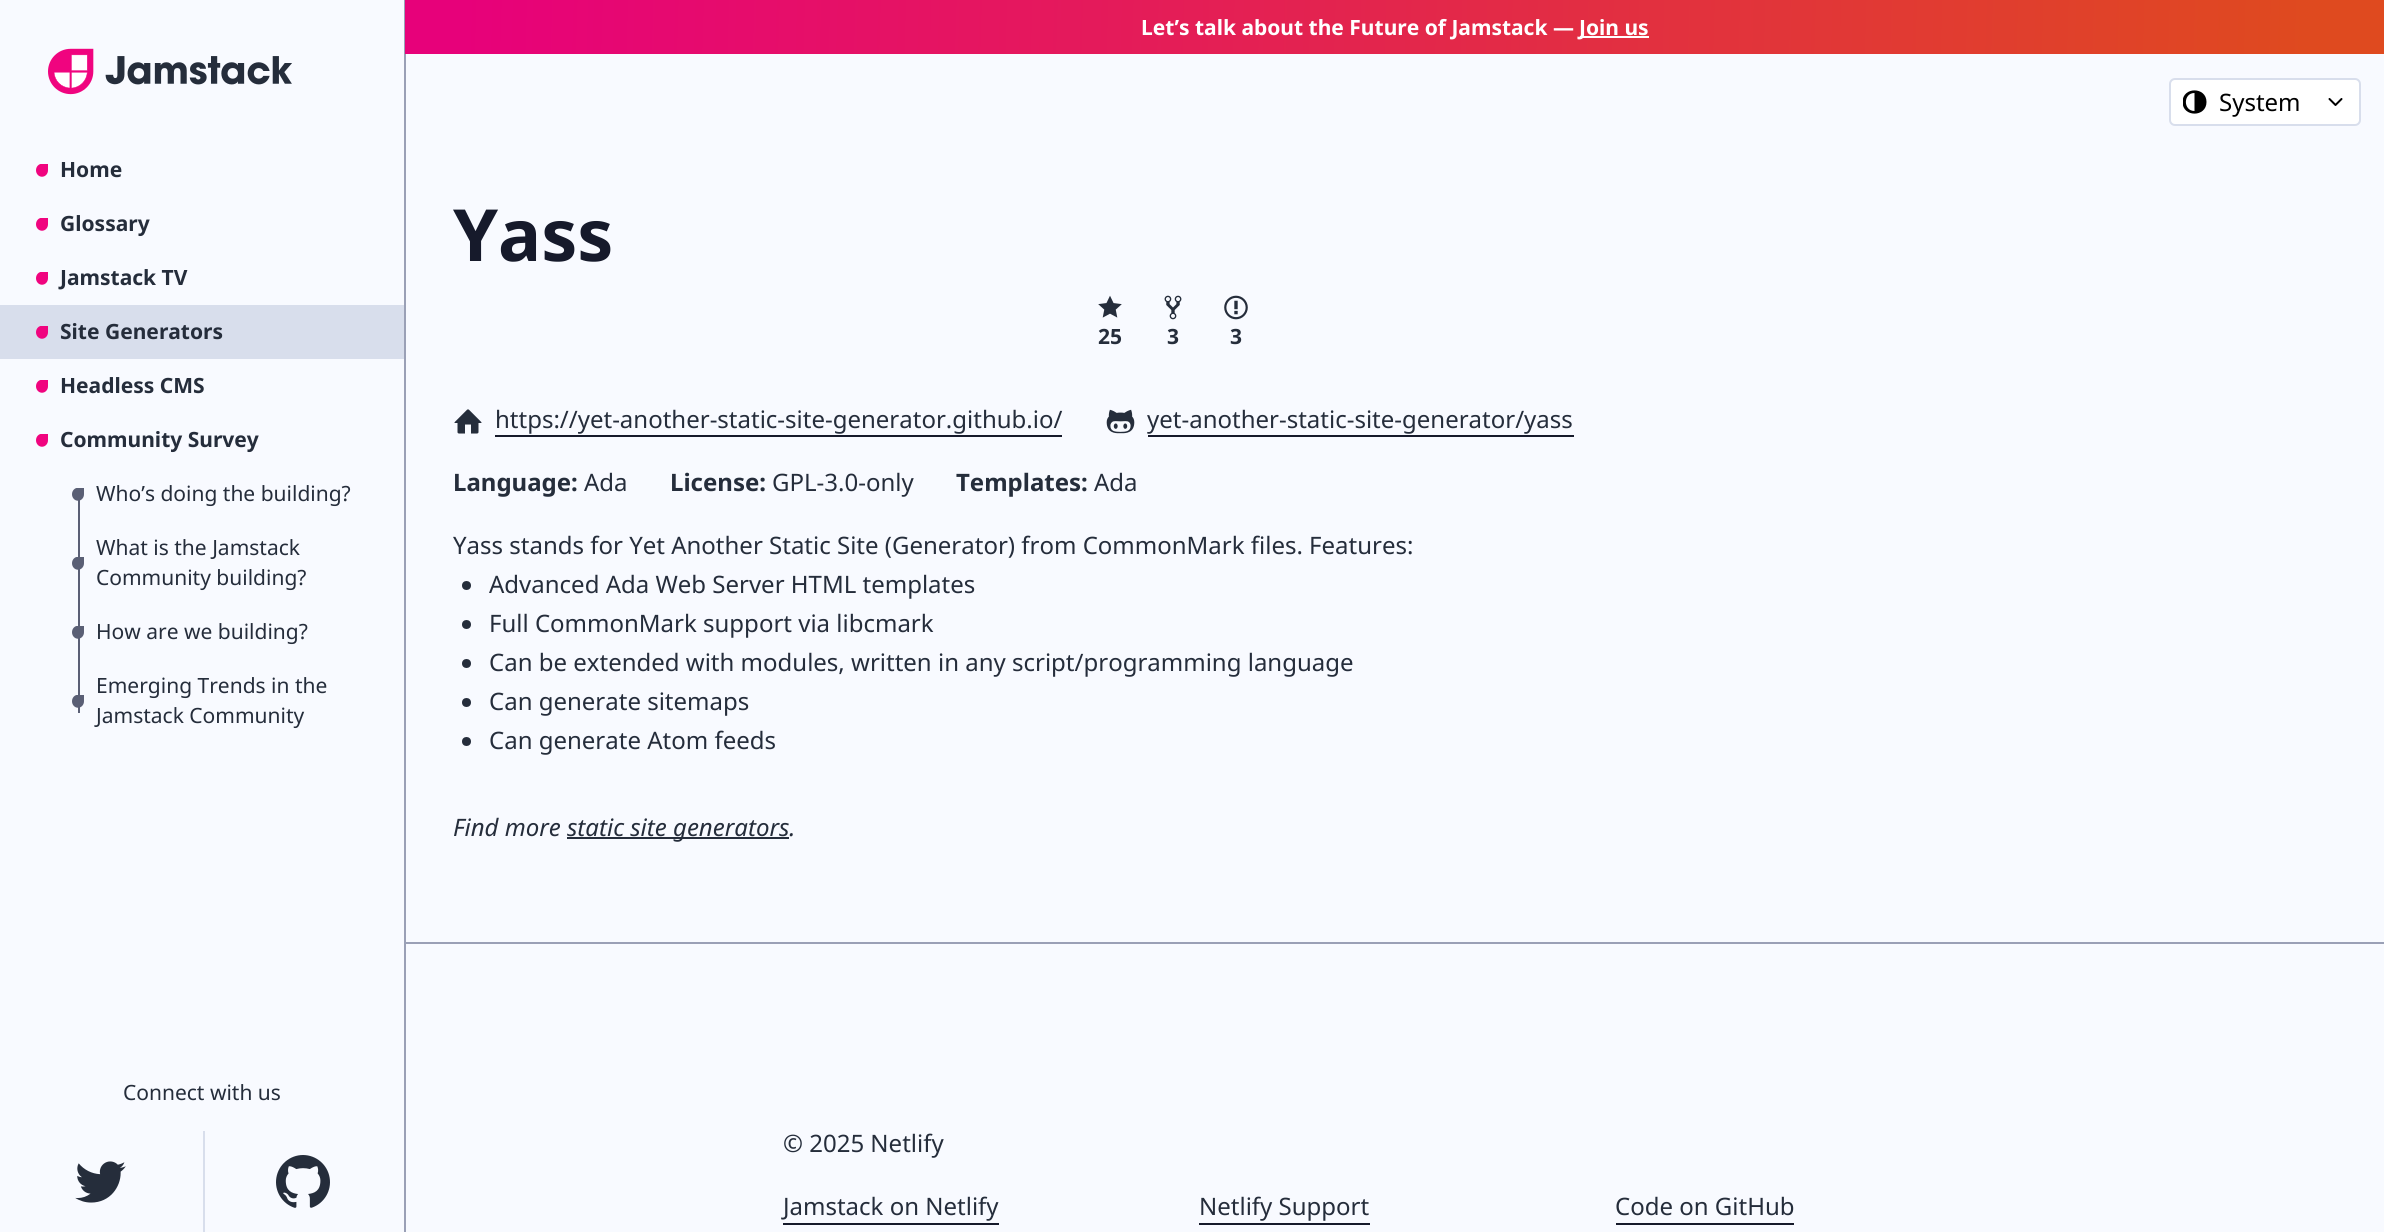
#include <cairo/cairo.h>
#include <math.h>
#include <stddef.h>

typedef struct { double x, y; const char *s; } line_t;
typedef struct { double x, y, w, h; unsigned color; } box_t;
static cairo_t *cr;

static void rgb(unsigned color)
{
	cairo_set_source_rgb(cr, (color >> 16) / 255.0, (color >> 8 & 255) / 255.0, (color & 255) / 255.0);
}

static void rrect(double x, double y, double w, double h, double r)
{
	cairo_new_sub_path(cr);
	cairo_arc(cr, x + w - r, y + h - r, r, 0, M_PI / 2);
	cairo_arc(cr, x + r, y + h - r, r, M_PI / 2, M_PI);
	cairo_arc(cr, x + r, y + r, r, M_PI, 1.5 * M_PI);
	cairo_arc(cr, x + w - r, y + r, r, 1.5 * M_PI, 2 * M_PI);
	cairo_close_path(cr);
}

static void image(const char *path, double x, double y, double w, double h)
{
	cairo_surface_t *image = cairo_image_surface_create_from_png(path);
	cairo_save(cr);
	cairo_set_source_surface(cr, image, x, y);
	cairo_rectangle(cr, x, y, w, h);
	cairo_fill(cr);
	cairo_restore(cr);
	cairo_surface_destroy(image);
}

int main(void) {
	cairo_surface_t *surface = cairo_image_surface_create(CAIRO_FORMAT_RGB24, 2384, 1232);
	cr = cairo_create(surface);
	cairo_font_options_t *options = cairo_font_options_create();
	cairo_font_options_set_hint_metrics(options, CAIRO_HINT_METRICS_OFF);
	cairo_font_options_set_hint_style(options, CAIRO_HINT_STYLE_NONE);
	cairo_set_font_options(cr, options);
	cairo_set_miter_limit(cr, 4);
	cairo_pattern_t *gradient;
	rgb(0xf8faff);
	cairo_paint(cr);
	rgb(0x9aa0b6);
	cairo_rectangle(cr, 404, 0, 2, 1232);
	cairo_fill(cr);
	image("img/1.png", 48, 48, 244, 47);
	image("img/2.png", 36, 164, 12, 13);
	image("img/2.png", 36, 218, 12, 13);
	image("img/2.png", 36, 272, 12, 13);
	rgb(0xd8deec);
	cairo_rectangle(cr, 0, 305, 404, 54);
	cairo_fill(cr);
	image("img/3.png", 36, 326, 12, 13);
	image("img/2.png", 36, 380, 12, 13);
	image("img/2.png", 36, 434, 12, 13);
	rgb(0x5a5f75);
	cairo_rectangle(cr, 78, 497, 2, 216);
	cairo_fill(cr);
	image("img/4.png", 72, 488, 12, 13);
	image("img/4.png", 72, 557, 12, 13);
	image("img/4.png", 72, 626, 12, 13);
	image("img/4.png", 72, 695, 12, 13);
	image("img/5.png", 75, 1161, 51, 42);
	rgb(0xd8deec);
	cairo_rectangle(cr, 203, 1131, 2, 101);
	cairo_fill(cr);
	image("img/6.png", 276, 1155, 54, 53);
	gradient = cairo_pattern_create_linear(405, -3.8, 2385, 58);
	cairo_pattern_add_color_stop_rgba(gradient, 0.03, 0.906, 0.004, 0.478, 1);
	cairo_pattern_add_color_stop_rgba(gradient, 0.96, 0.875, 0.29, 0.122, 1);
	cairo_set_source(cr, gradient);
	cairo_pattern_destroy(gradient);
	cairo_rectangle(cr, 405, 0, 1979, 54);
	cairo_fill(cr);
	rgb(0xffffff);
	cairo_rectangle(cr, 1580, 36, 69, 2);
	cairo_fill(cr);
	rrect(2170, 79, 190, 46, 5);
	cairo_fill_preserve(cr);
	rgb(0xd8deec);
	cairo_stroke(cr);
	cairo_save(cr);
	cairo_rectangle(cr, 2183, 80, 24, 45);
	cairo_clip(cr);
	rgb(0x000000);
	cairo_set_fill_rule(cr, CAIRO_FILL_RULE_EVEN_ODD);
	cairo_new_path(cr);
	cairo_move_to(cr, 2206.5, 102);
	cairo_curve_to(cr, 2206.5, 117.5, 2182.5, 117.5, 2182.5, 102);
	cairo_curve_to(cr, 2182.5, 86.5, 2206.5, 86.5, 2206.5, 102);
	cairo_close_path(cr);
	cairo_move_to(cr, 2194.5, 111);
	cairo_curve_to(cr, 2183, 111, 2183, 93, 2194.5, 93);
	cairo_close_path(cr);
	cairo_fill(cr);
	cairo_restore(cr);
	cairo_new_path(cr);
	cairo_move_to(cr, 2329.5, 99);
	cairo_line_to(cr, 2335.5, 105);
	cairo_line_to(cr, 2341.5, 99);
	rgb(0x000000);
	cairo_set_line_cap(cr, CAIRO_LINE_CAP_ROUND);
	cairo_set_line_join(cr, CAIRO_LINE_JOIN_ROUND);
	cairo_stroke(cr);
	image("img/7.png", 1098, 295, 24, 23);
	image("img/8.png", 1164, 295, 18, 25);
	image("img/9.png", 1224, 295, 24, 25);
	image("img/10.png", 454, 409, 28, 25);
	rgb(0x161a2b);
	cairo_rectangle(cr, 495, 435, 567, 2);
	cairo_fill(cr);
	image("img/11.png", 1106, 409, 29, 25);
	cairo_rectangle(cr, 1148, 435, 426, 2);
	cairo_fill(cr);
	rgb(0x252d3b);
	cairo_arc(cr, 466.5, 585.5, 4.5, 0, 2 * M_PI);
	cairo_fill(cr);
	cairo_arc(cr, 466.5, 624.5, 4.5, 0, 2 * M_PI);
	cairo_fill(cr);
	cairo_arc(cr, 466.5, 663.5, 4.5, 0, 2 * M_PI);
	cairo_fill(cr);
	cairo_arc(cr, 466.5, 702.5, 4.5, 0, 2 * M_PI);
	cairo_fill(cr);
	cairo_arc(cr, 466.5, 741.5, 4.5, 0, 2 * M_PI);
	cairo_fill(cr);
	{
		static const box_t items[] = {
			{567, 837, 222, 2, 0x252d3b},
			{405, 942, 1979, 2, 0x9aa0b6},
			{783, 1223, 216, 2, 0x161a2b},
			{1199, 1223, 171, 2, 0x161a2b},
			{1616, 1223, 178, 2, 0x161a2b},
		};
		for (size_t i = 0; i < sizeof items / sizeof *items; i++) {
			rgb(items[i].color);
			cairo_rectangle(cr, items[i].x, items[i].y, items[i].w, items[i].h);
			cairo_fill(cr);
		}
	}
	cairo_select_font_face(cr, "Noto Sans", CAIRO_FONT_SLANT_NORMAL, CAIRO_FONT_WEIGHT_BOLD);
	cairo_set_font_size(cr, 21);
	rgb(0x252d3b);
	{
		static const line_t items[] = {
			{60, 177, "Home"},
			{60, 231, "Glossary"},
			{60, 285, "Jamstack TV"},
			{60, 339, "Site Generators"},
			{60, 393, "Headless CMS"},
			{60, 447, "Community Survey"},
		};
		for (size_t i = 0; i < sizeof items / sizeof *items; i++) {
			cairo_move_to(cr, items[i].x, items[i].y);
			cairo_show_text(cr, items[i].s);
		}
	}
	cairo_select_font_face(cr, "Noto Sans", CAIRO_FONT_SLANT_NORMAL, CAIRO_FONT_WEIGHT_NORMAL);
	{
		static const line_t items[] = {
			{96, 501, "Who’s doing the building?"},
			{96, 555, "What is the Jamstack"},
			{96, 585, "Community building?"},
			{96, 639, "How are we building?"},
			{96, 693, "Emerging Trends in the"},
			{96, 723, "Jamstack Community"},
			{123, 1100, "Connect with us"},
		};
		for (size_t i = 0; i < sizeof items / sizeof *items; i++) {
			cairo_move_to(cr, items[i].x, items[i].y);
			cairo_show_text(cr, items[i].s);
		}
	}
	cairo_select_font_face(cr, "Noto Sans", CAIRO_FONT_SLANT_NORMAL, CAIRO_FONT_WEIGHT_BOLD);
	rgb(0xffffff);
	cairo_move_to(cr, 1141, 35);
	cairo_show_text(cr, "Let’s talk about the Future of Jamstack —");
	cairo_move_to(cr, 1579, 35);
	cairo_show_text(cr, "Join us");
	cairo_select_font_face(cr, "Noto Sans", CAIRO_FONT_SLANT_NORMAL, CAIRO_FONT_WEIGHT_NORMAL);
	cairo_set_font_size(cr, 24);
	rgb(0x000000);
	cairo_move_to(cr, 2219, 111);
	cairo_show_text(cr, "System");
	cairo_select_font_face(cr, "Noto Sans", CAIRO_FONT_SLANT_NORMAL, CAIRO_FONT_WEIGHT_BOLD);
	cairo_set_font_size(cr, 72);
	rgb(0x161a2b);
	cairo_move_to(cr, 453, 261);
	cairo_show_text(cr, "Yass");
	cairo_set_font_size(cr, 21);
	rgb(0x252d3b);
	{
		static const line_t items[] = {
			{1098, 344, "25"},
			{1167, 344, "3"},
			{1230, 344, "3"},
		};
		for (size_t i = 0; i < sizeof items / sizeof *items; i++) {
			cairo_move_to(cr, items[i].x, items[i].y);
			cairo_show_text(cr, items[i].s);
		}
	}
	cairo_select_font_face(cr, "Noto Sans", CAIRO_FONT_SLANT_NORMAL, CAIRO_FONT_WEIGHT_NORMAL);
	cairo_set_font_size(cr, 24);
	cairo_move_to(cr, 495, 428);
	cairo_show_text(cr, "https://yet-another-static-site-generator.github.io/");
	cairo_move_to(cr, 1147, 428);
	cairo_show_text(cr, "yet-another-static-site-generator/yass");
	cairo_select_font_face(cr, "Noto Sans", CAIRO_FONT_SLANT_NORMAL, CAIRO_FONT_WEIGHT_BOLD);
	cairo_move_to(cr, 453, 491);
	cairo_show_text(cr, "Language:");
	cairo_select_font_face(cr, "Noto Sans", CAIRO_FONT_SLANT_NORMAL, CAIRO_FONT_WEIGHT_NORMAL);
	cairo_move_to(cr, 584, 491);
	cairo_show_text(cr, "Ada");
	cairo_select_font_face(cr, "Noto Sans", CAIRO_FONT_SLANT_NORMAL, CAIRO_FONT_WEIGHT_BOLD);
	cairo_move_to(cr, 670, 491);
	cairo_show_text(cr, "License:");
	cairo_select_font_face(cr, "Noto Sans", CAIRO_FONT_SLANT_NORMAL, CAIRO_FONT_WEIGHT_NORMAL);
	cairo_move_to(cr, 772, 491);
	cairo_show_text(cr, "GPL-3.0-only");
	cairo_select_font_face(cr, "Noto Sans", CAIRO_FONT_SLANT_NORMAL, CAIRO_FONT_WEIGHT_BOLD);
	cairo_move_to(cr, 956, 491);
	cairo_show_text(cr, "Templates:");
	cairo_select_font_face(cr, "Noto Sans", CAIRO_FONT_SLANT_NORMAL, CAIRO_FONT_WEIGHT_NORMAL);
	{
		static const line_t items[] = {
			{1094, 491, "Ada"},
			{453, 554, "Yass stands for Yet Another Static Site (Generator) from CommonMark files. Features:"},
			{489, 593, "Advanced Ada Web Server HTML templates"},
			{489, 632, "Full CommonMark support via libcmark"},
			{489, 671, "Can be extended with modules, written in any script/programming language"},
			{489, 710, "Can generate sitemaps"},
			{489, 749, "Can generate Atom feeds"},
		};
		for (size_t i = 0; i < sizeof items / sizeof *items; i++) {
			cairo_move_to(cr, items[i].x, items[i].y);
			cairo_show_text(cr, items[i].s);
		}
	}
	cairo_select_font_face(cr, "Noto Sans", CAIRO_FONT_SLANT_ITALIC, CAIRO_FONT_WEIGHT_NORMAL);
	cairo_move_to(cr, 453, 836);
	cairo_show_text(cr, "Find more");
	cairo_move_to(cr, 567, 836);
	cairo_show_text(cr, "static site generators.");
	cairo_select_font_face(cr, "Noto Sans", CAIRO_FONT_SLANT_NORMAL, CAIRO_FONT_WEIGHT_NORMAL);
	{
		static const line_t items[] = {
			{783, 1152, "© 2025 Netlify"},
			{783, 1215, "Jamstack on Netlify"},
			{1199, 1215, "Netlify Support"},
			{1615, 1215, "Code on GitHub"},
		};
		for (size_t i = 0; i < sizeof items / sizeof *items; i++) {
			cairo_move_to(cr, items[i].x, items[i].y);
			cairo_show_text(cr, items[i].s);
		}
	}
	cairo_surface_write_to_png(surface, "page.png");
	cairo_font_options_destroy(options);
	cairo_destroy(cr);
	cairo_surface_destroy(surface);
	return 0;
}
